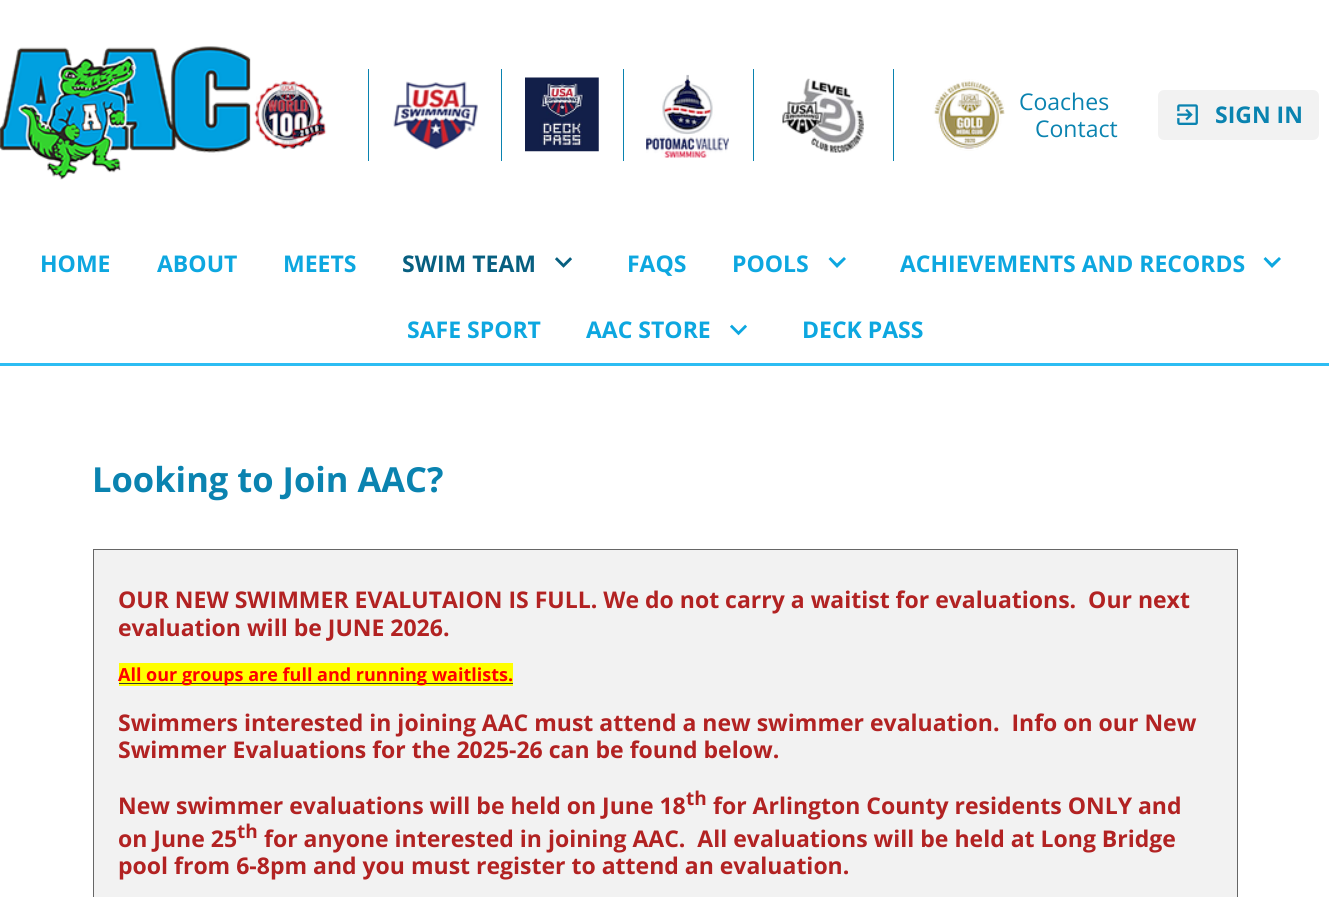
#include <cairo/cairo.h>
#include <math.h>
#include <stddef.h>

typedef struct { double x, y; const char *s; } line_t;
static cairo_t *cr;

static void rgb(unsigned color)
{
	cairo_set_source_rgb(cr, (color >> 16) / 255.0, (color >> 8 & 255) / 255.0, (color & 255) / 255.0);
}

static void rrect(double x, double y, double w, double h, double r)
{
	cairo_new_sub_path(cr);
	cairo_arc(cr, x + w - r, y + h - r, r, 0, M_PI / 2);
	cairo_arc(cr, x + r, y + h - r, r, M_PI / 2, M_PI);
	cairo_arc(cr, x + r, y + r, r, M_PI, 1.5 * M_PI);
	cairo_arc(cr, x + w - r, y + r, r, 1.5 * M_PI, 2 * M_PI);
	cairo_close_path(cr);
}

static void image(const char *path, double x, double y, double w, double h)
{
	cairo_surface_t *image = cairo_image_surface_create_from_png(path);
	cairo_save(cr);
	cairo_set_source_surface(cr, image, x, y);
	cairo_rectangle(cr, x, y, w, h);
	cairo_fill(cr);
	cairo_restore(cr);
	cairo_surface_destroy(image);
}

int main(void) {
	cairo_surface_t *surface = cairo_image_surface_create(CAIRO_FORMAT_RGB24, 1329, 897);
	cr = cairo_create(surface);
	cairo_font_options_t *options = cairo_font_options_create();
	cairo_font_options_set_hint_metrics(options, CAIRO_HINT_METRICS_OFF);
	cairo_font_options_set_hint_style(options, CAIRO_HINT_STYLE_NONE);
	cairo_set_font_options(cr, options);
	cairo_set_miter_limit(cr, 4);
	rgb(0xffffff);
	cairo_paint(cr);
	image("img/1.png", 0, 46, 251, 134);
	image("img/2.png", 253, 80, 74, 69);
	rgb(0x0a83b0);
	cairo_rectangle(cr, 368, 69, 1, 92);
	cairo_fill(cr);
	image("img/3.png", 393, 81, 85, 69);
	cairo_rectangle(cr, 501, 69, 1, 92);
	cairo_fill(cr);
	image("img/4.png", 525, 77, 74, 75);
	cairo_rectangle(cr, 623, 69, 1, 92);
	cairo_fill(cr);
	image("img/5.png", 646, 74, 83, 84);
	cairo_rectangle(cr, 753, 69, 1, 92);
	cairo_fill(cr);
	image("img/6.png", 782, 78, 82, 75);
	cairo_rectangle(cr, 893, 69, 1, 92);
	cairo_fill(cr);
	image("img/7.png", 933, 79, 72, 72);
	rgb(0xf2f2f2);
	rrect(1158, 90, 161, 50, 6);
	cairo_fill(cr);
	image("img/8.png", 1177, 104, 21, 21);
	rgb(0x2dbdf3);
	cairo_rectangle(cr, 0, 363, 1329, 3);
	cairo_fill(cr);
	image("img/9.png", 555, 257, 17, 11);
	rgb(0x0da7e0);
	cairo_new_path(cr);
	cairo_move_to(cr, 830.5, 257);
	cairo_line_to(cr, 837, 263.5);
	cairo_line_to(cr, 844, 257);
	cairo_line_to(cr, 846, 259);
	cairo_line_to(cr, 837, 268);
	cairo_line_to(cr, 828.5, 259);
	cairo_close_path(cr);
	cairo_fill(cr);
	cairo_new_path(cr);
	cairo_move_to(cr, 1265.5, 257);
	cairo_line_to(cr, 1272, 263.5);
	cairo_line_to(cr, 1279, 257);
	cairo_line_to(cr, 1281, 259);
	cairo_line_to(cr, 1272, 268);
	cairo_line_to(cr, 1263.5, 259);
	cairo_close_path(cr);
	cairo_fill(cr);
	image("img/10.png", 730, 324, 17, 12);
	rgb(0xf2f2f2);
	cairo_rectangle(cr, 93.5, 549.5, 1144, 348);
	cairo_fill_preserve(cr);
	rgb(0x666666);
	cairo_set_line_width(cr, 1);
	cairo_stroke(cr);
	rgb(0xffff00);
	cairo_rectangle(cr, 119, 663, 394, 23);
	cairo_fill(cr);
	rgb(0x343434);
	cairo_rectangle(cr, 119, 683, 394, 1);
	cairo_fill(cr);
	cairo_select_font_face(cr, "Open Sans", CAIRO_FONT_SLANT_NORMAL, CAIRO_FONT_WEIGHT_NORMAL);
	cairo_set_font_size(cr, 23);
	rgb(0x0a83b0);
	cairo_move_to(cr, 1019, 110);
	cairo_show_text(cr, "Coaches");
	cairo_move_to(cr, 1035, 137);
	cairo_show_text(cr, "Contact");
	cairo_select_font_face(cr, "Open Sans", CAIRO_FONT_SLANT_NORMAL, CAIRO_FONT_WEIGHT_BOLD);
	cairo_move_to(cr, 1215, 123);
	cairo_show_text(cr, "SIGN IN");
	rgb(0x0da7e0);
	{
		static const line_t items[] = {
			{40, 272, "HOME"},
			{157, 272, "ABOUT"},
			{283, 272, "MEETS"},
		};
		for (size_t i = 0; i < sizeof items / sizeof *items; i++) {
			cairo_move_to(cr, items[i].x, items[i].y);
			cairo_show_text(cr, items[i].s);
		}
	}
	rgb(0x075f80);
	cairo_move_to(cr, 402, 272);
	cairo_show_text(cr, "SWIM TEAM");
	rgb(0x0da7e0);
	{
		static const line_t items[] = {
			{627, 272, "FAQS"},
			{732, 272, "POOLS"},
			{900, 272, "ACHIEVEMENTS AND RECORDS"},
			{407, 338, "SAFE SPORT"},
			{586, 338, "AAC STORE"},
			{802, 338, "DECK PASS"},
		};
		for (size_t i = 0; i < sizeof items / sizeof *items; i++) {
			cairo_move_to(cr, items[i].x, items[i].y);
			cairo_show_text(cr, items[i].s);
		}
	}
	cairo_set_font_size(cr, 34.5);
	rgb(0x0a83b0);
	cairo_move_to(cr, 92, 492);
	cairo_show_text(cr, "Looking to Join AAC?");
	cairo_set_font_size(cr, 23);
	rgb(0xb22222);
	cairo_move_to(cr, 118, 608);
	cairo_show_text(cr, "OUR NEW SWIMMER EVALUTAION IS FULL. We do not carry a waitist for evaluations.  Our next");
	cairo_move_to(cr, 118, 636);
	cairo_show_text(cr, "evaluation will be JUNE 2026.");
	cairo_set_font_size(cr, 18);
	rgb(0xff0000);
	cairo_move_to(cr, 118, 681);
	cairo_show_text(cr, "All our groups are full and running waitlists.");
	cairo_set_font_size(cr, 23);
	rgb(0xb22222);
	{
		static const line_t items[] = {
			{118, 731, "Swimmers interested in joining AAC must attend a new swimmer evaluation.  Info on our New"},
			{118, 758, "Swimmer Evaluations for the 2025-26 can be found below."},
			{118, 814, "New swimmer evaluations will be held on June 18"},
		};
		for (size_t i = 0; i < sizeof items / sizeof *items; i++) {
			cairo_move_to(cr, items[i].x, items[i].y);
			cairo_show_text(cr, items[i].s);
		}
	}
	cairo_set_font_size(cr, 19);
	cairo_move_to(cr, 686, 805);
	cairo_show_text(cr, "th");
	cairo_set_font_size(cr, 23);
	cairo_move_to(cr, 713, 814);
	cairo_show_text(cr, "for Arlington County residents ONLY and");
	cairo_move_to(cr, 118, 847);
	cairo_show_text(cr, "on June 25");
	cairo_set_font_size(cr, 19);
	cairo_move_to(cr, 237, 838);
	cairo_show_text(cr, "th");
	cairo_set_font_size(cr, 23);
	cairo_move_to(cr, 264, 847);
	cairo_show_text(cr, "for anyone interested in joining AAC.  All evaluations will be held at Long Bridge");
	cairo_move_to(cr, 118, 874);
	cairo_show_text(cr, "pool from 6-8pm and you must register to attend an evaluation.");
	cairo_surface_write_to_png(surface, "page.png");
	cairo_font_options_destroy(options);
	cairo_destroy(cr);
	cairo_surface_destroy(surface);
	return 0;
}
